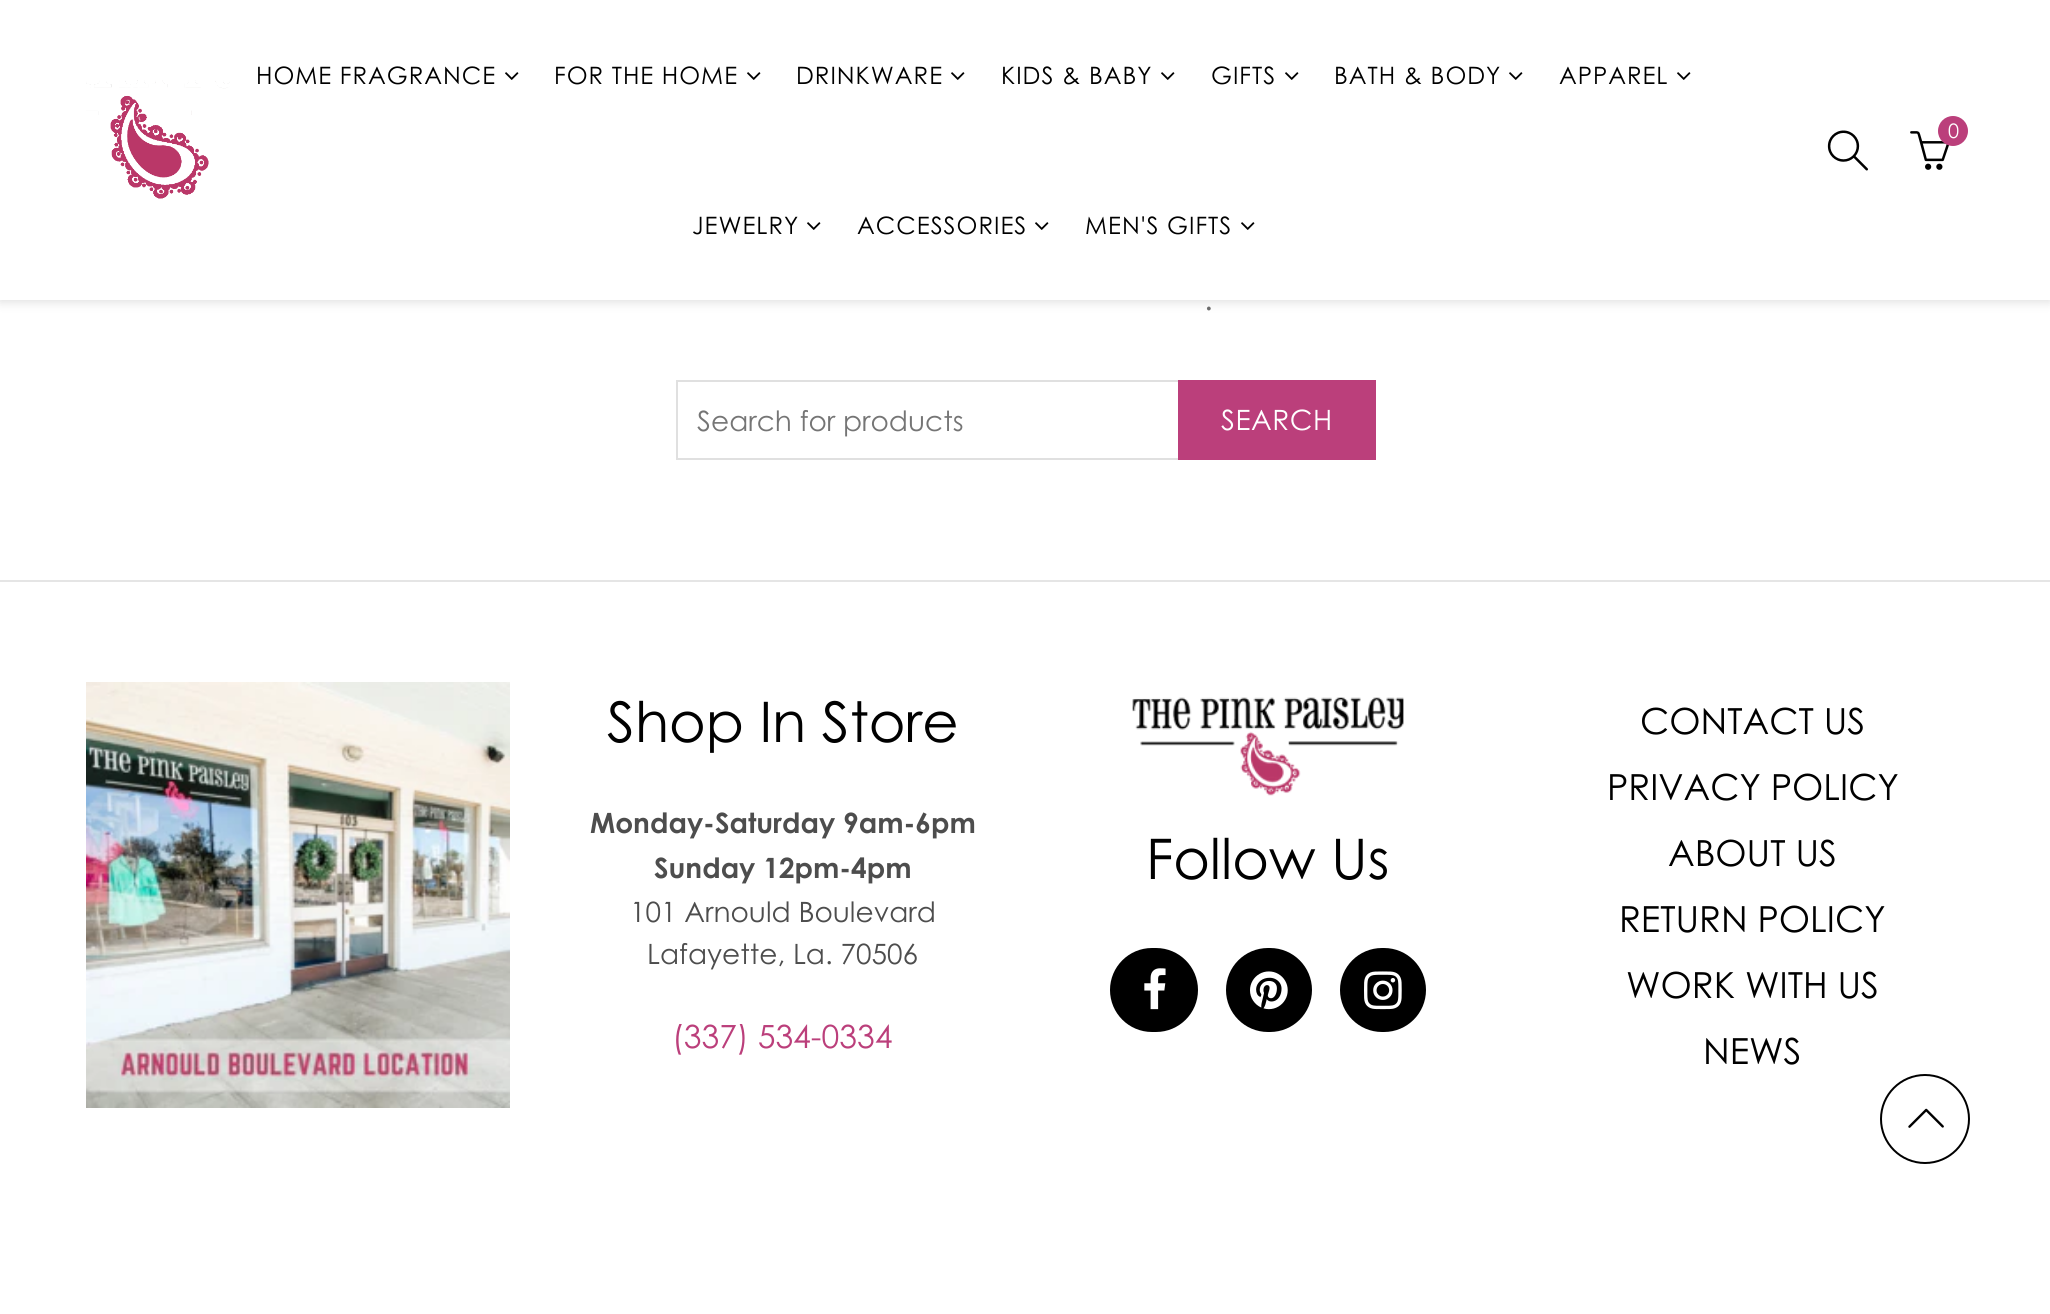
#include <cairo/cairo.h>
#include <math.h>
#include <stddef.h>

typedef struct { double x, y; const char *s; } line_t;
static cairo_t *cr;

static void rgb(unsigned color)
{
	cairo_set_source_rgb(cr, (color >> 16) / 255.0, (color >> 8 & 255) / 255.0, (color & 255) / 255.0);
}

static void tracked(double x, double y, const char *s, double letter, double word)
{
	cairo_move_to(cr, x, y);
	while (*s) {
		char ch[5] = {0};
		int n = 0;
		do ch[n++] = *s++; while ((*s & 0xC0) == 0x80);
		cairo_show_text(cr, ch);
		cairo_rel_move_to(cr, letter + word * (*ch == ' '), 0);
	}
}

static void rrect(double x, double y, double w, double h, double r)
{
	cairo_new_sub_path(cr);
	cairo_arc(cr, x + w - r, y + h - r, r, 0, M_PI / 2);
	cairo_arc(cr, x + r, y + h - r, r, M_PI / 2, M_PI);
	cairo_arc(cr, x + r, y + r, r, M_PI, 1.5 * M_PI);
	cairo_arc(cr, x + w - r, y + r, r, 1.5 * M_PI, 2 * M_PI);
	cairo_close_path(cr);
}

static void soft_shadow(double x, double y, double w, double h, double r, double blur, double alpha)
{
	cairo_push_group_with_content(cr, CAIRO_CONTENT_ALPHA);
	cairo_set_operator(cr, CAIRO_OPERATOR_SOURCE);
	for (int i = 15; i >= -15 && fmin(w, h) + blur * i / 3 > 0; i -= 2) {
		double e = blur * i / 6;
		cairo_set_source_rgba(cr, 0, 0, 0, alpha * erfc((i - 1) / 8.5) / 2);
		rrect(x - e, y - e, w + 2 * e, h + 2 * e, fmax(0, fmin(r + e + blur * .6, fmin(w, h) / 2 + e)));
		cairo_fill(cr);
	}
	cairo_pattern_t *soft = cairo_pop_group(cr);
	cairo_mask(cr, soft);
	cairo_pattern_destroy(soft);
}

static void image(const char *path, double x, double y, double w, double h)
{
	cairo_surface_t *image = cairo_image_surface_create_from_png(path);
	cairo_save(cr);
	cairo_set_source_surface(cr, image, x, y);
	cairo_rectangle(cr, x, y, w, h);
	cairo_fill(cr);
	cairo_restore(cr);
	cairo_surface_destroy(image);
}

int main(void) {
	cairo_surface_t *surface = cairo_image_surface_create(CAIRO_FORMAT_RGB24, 2050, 1314);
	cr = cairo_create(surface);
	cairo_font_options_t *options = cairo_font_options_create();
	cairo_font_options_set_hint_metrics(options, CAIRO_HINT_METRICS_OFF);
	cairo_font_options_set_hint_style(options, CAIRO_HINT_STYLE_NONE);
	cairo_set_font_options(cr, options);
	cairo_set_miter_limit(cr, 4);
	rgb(0xffffff);
	cairo_paint(cr);
	rgb(0xbebebe);
	soft_shadow(0, 2, 2050, 300, 0, 5, 0.5);
	rgb(0xffffff);
	cairo_rectangle(cr, 0, 0, 2050, 300);
	cairo_fill(cr);
	image("img/1.png", 86, 80, 144, 119);
	image("img/2.png", 505, 72, 14, 8);
	image("img/2.png", 747, 72, 14, 8);
	image("img/2.png", 951, 72, 14, 8);
	image("img/2.png", 1161, 72, 14, 8);
	image("img/2.png", 1285, 72, 14, 8);
	image("img/2.png", 1509, 72, 14, 8);
	image("img/2.png", 1677, 72, 14, 8);
	image("img/2.png", 807, 222, 14, 8);
	image("img/2.png", 1035, 222, 14, 8);
	image("img/2.png", 1241, 222, 14, 8);
	image("img/3.png", 1827, 130, 41, 41);
	image("img/4.png", 1910, 131, 39, 39);
	rgb(0xbb3f7b);
	cairo_arc(cr, 1953, 131, 15, 0, 2 * M_PI);
	cairo_fill(cr);
	cairo_rectangle(cr, 677, 381, 698, 78);
	rgb(0xe0e0e0);
	cairo_stroke(cr);
	rgb(0xbb3f7b);
	cairo_rectangle(cr, 1178, 380, 198, 80);
	cairo_fill(cr);
	rgb(0xe5e5e5);
	cairo_rectangle(cr, 0, 580, 2050, 2);
	cairo_fill(cr);
	image("img/5.png", 86, 682, 424, 426);
	image("img/6.png", 1132, 697, 272, 99);
	rgb(0x000000);
	rrect(1110, 948, 88, 84, 42);
	cairo_fill(cr);
	image("img/7.png", 1144, 968, 22, 42);
	rrect(1226, 948, 86, 84, 42);
	cairo_fill(cr);
	image("img/8.png", 1250, 971, 38, 39);
	rrect(1340, 948, 86, 84, 42);
	cairo_fill(cr);
	image("img/9.png", 1364, 971, 38, 39);
	cairo_arc(cr, 1925, 1119, 44, 0, 2 * M_PI);
	cairo_stroke(cr);
	image("img/10.png", 1908, 1108, 36, 20);
	cairo_select_font_face(cr, "Century Gothic", CAIRO_FONT_SLANT_NORMAL, CAIRO_FONT_WEIGHT_NORMAL);
	cairo_set_font_size(cr, 24);
	{
		static const line_t items[] = {
			{256, 84, "HOME FRAGRANCE"},
			{554, 84, "FOR THE HOME"},
			{796, 84, "DRINKWARE"},
			{1001, 84, "KIDS & BABY"},
			{1211, 84, "GIFTS"},
			{1334, 84, "BATH & BODY"},
			{1559, 84, "APPAREL"},
			{692, 234, "JEWELRY"},
			{857, 234, "ACCESSORIES"},
			{1085, 234, "MEN'S GIFTS"},
		};
		for (size_t i = 0; i < sizeof items / sizeof *items; i++) {
			tracked(items[i].x, items[i].y, items[i].s, 1, 0);
		}
	}
	cairo_set_font_size(cr, 20);
	rgb(0xffffff);
	cairo_move_to(cr, 1948, 138);
	cairo_show_text(cr, "0");
	cairo_set_font_size(cr, 32);
	rgb(0x6c6c6c);
	cairo_move_to(cr, 1204, 310);
	cairo_show_text(cr, ".");
	cairo_set_font_size(cr, 28);
	rgb(0x757575);
	cairo_move_to(cr, 697, 431);
	cairo_show_text(cr, "Search for products");
	rgb(0xffffff);
	tracked(1221, 430, "SEARCH", 0.5, 0);
	cairo_set_font_size(cr, 56);
	rgb(0x000000);
	cairo_move_to(cr, 607, 742);
	cairo_show_text(cr, "Shop In Store");
	cairo_select_font_face(cr, "Century Gothic", CAIRO_FONT_SLANT_NORMAL, CAIRO_FONT_WEIGHT_BOLD);
	cairo_set_font_size(cr, 28);
	rgb(0x4d4d4d);
	cairo_move_to(cr, 590, 833);
	cairo_show_text(cr, "Monday-Saturday 9am-6pm");
	cairo_move_to(cr, 654, 878);
	cairo_show_text(cr, "Sunday 12pm-4pm");
	cairo_select_font_face(cr, "Century Gothic", CAIRO_FONT_SLANT_NORMAL, CAIRO_FONT_WEIGHT_NORMAL);
	cairo_move_to(cr, 630, 922);
	cairo_show_text(cr, "101 Arnould Boulevard");
	cairo_move_to(cr, 647, 964);
	cairo_show_text(cr, "Lafayette, La. 70506");
	cairo_set_font_size(cr, 32);
	rgb(0xbb3f7b);
	cairo_move_to(cr, 672, 1048);
	cairo_show_text(cr, "(337) 534-0334");
	cairo_set_font_size(cr, 56);
	rgb(0x000000);
	cairo_move_to(cr, 1146, 879);
	cairo_show_text(cr, "Follow Us");
	cairo_set_font_size(cr, 36);
	{
		static const line_t items[] = {
			{1640, 734, "CONTACT US"},
			{1607, 800, "PRIVACY POLICY"},
			{1668, 866, "ABOUT US"},
			{1619, 932, "RETURN POLICY"},
			{1626, 998, "WORK WITH US"},
			{1703, 1064, "NEWS"},
		};
		for (size_t i = 0; i < sizeof items / sizeof *items; i++) {
			cairo_move_to(cr, items[i].x, items[i].y);
			cairo_show_text(cr, items[i].s);
		}
	}
	cairo_surface_write_to_png(surface, "page.png");
	cairo_font_options_destroy(options);
	cairo_destroy(cr);
	cairo_surface_destroy(surface);
	return 0;
}
